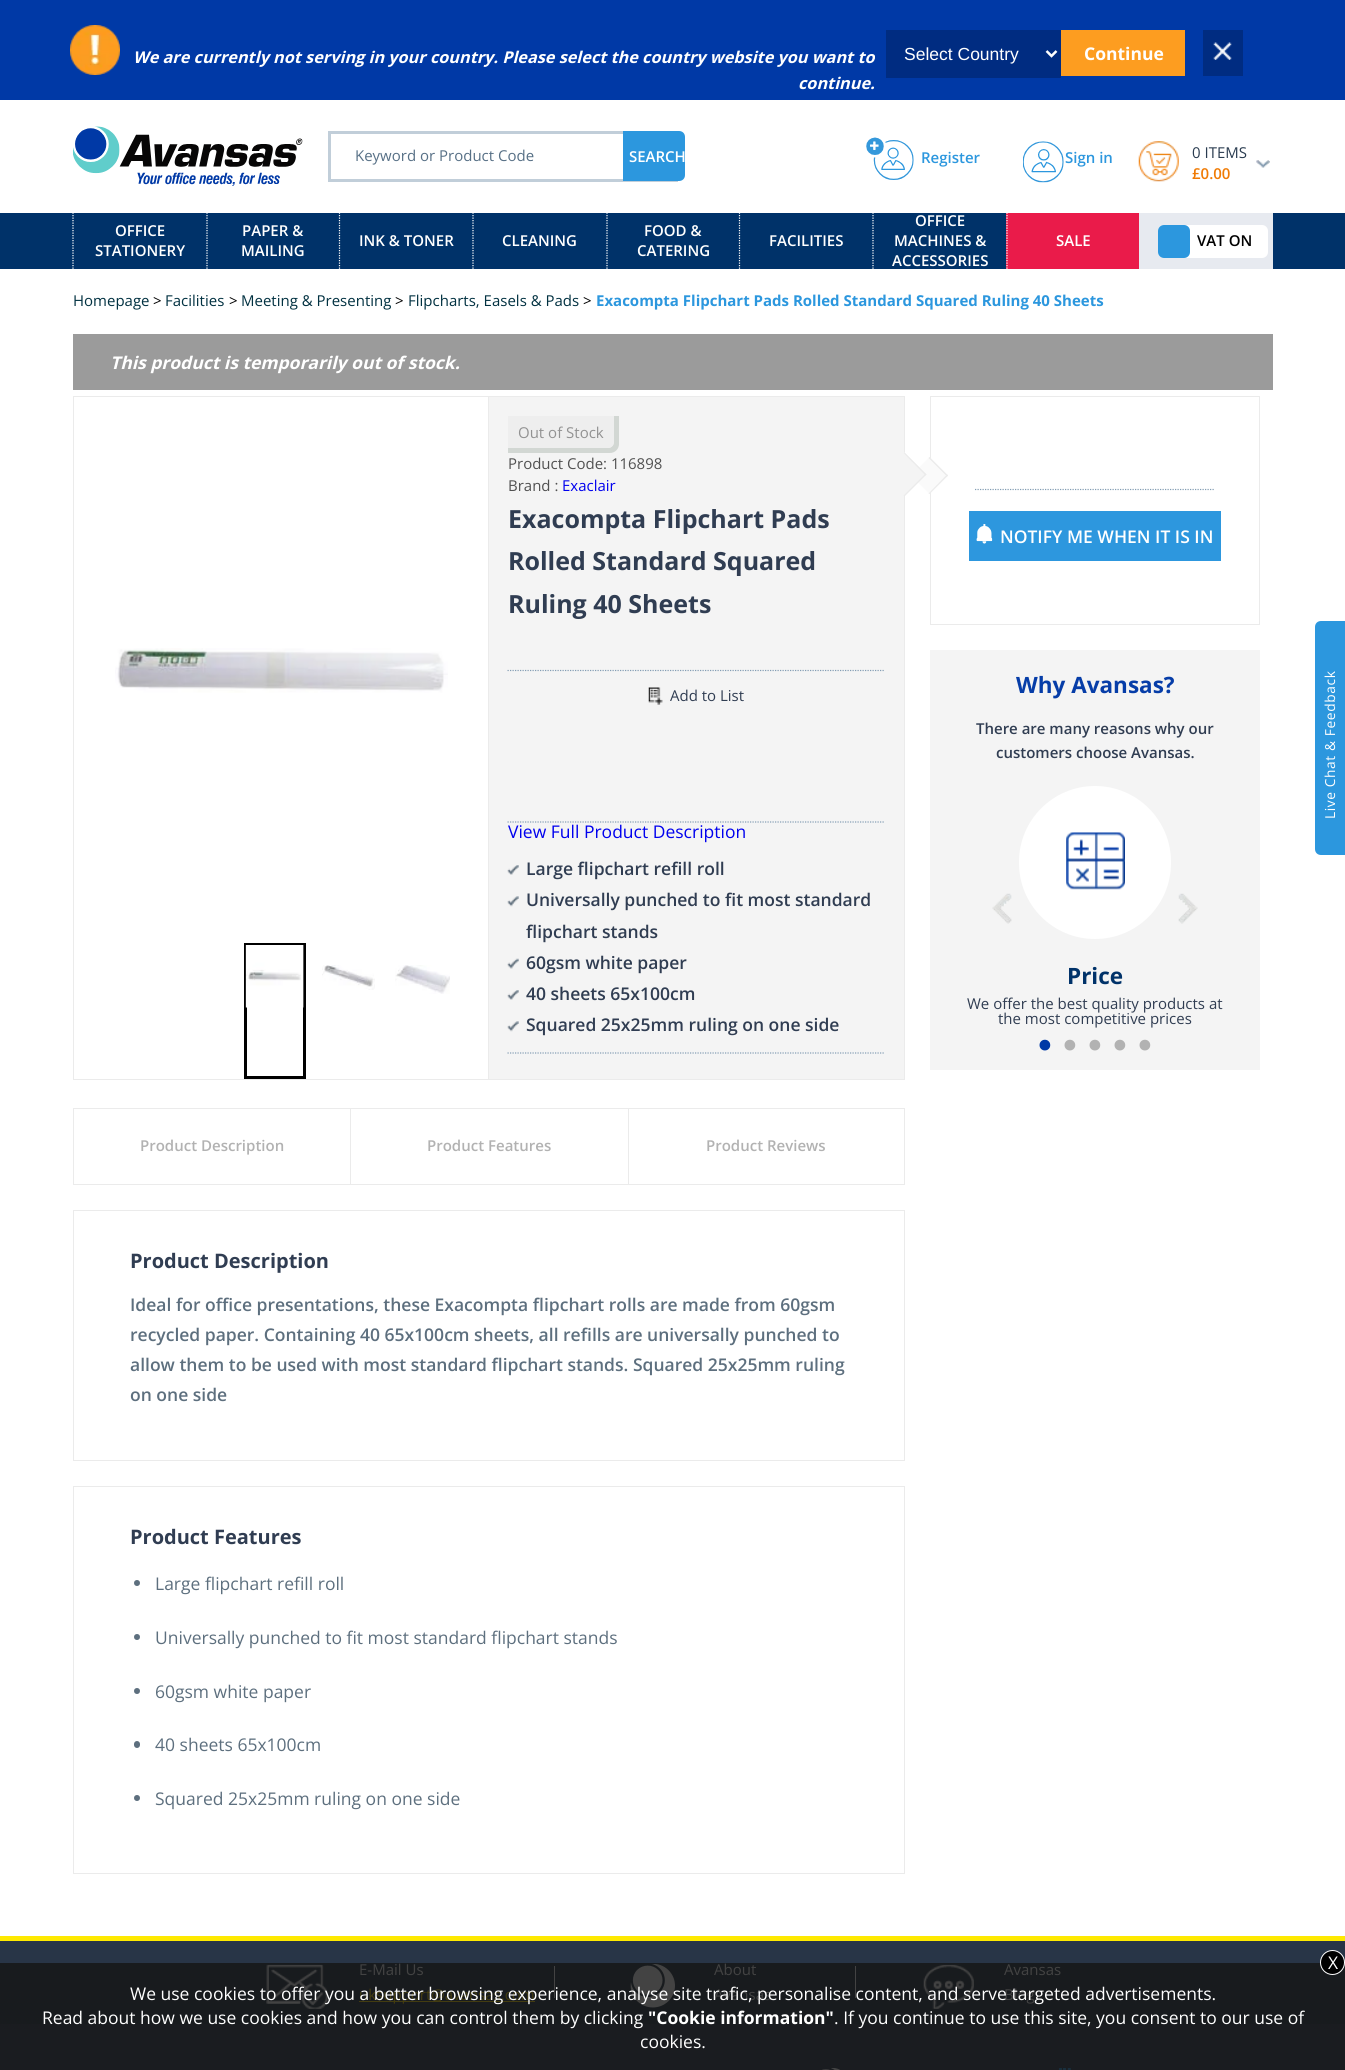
#include <cairo/cairo.h>
#include <math.h>
#include <stddef.h>

typedef struct { double x, y; const char *s; } line_t;
typedef struct { double x, y, w, h; unsigned color; } box_t;
static cairo_t *cr;

static void rgb(unsigned color)
{
	cairo_set_source_rgb(cr, (color >> 16) / 255.0, (color >> 8 & 255) / 255.0, (color & 255) / 255.0);
}

static void tracked(double x, double y, const char *s, double letter, double word)
{
	cairo_move_to(cr, x, y);
	while (*s) {
		char ch[5] = {0};
		int n = 0;
		do ch[n++] = *s++; while ((*s & 0xC0) == 0x80);
		cairo_show_text(cr, ch);
		cairo_rel_move_to(cr, letter + word * (*ch == ' '), 0);
	}
}

static void rrect(double x, double y, double w, double h, double r)
{
	cairo_new_sub_path(cr);
	cairo_arc(cr, x + w - r, y + h - r, r, 0, M_PI / 2);
	cairo_arc(cr, x + r, y + h - r, r, M_PI / 2, M_PI);
	cairo_arc(cr, x + r, y + r, r, M_PI, 1.5 * M_PI);
	cairo_arc(cr, x + w - r, y + r, r, 1.5 * M_PI, 2 * M_PI);
	cairo_close_path(cr);
}

static void image(const char *path, double x, double y, double w, double h)
{
	cairo_surface_t *image = cairo_image_surface_create_from_png(path);
	cairo_save(cr);
	cairo_set_source_surface(cr, image, x, y);
	cairo_rectangle(cr, x, y, w, h);
	cairo_fill(cr);
	cairo_restore(cr);
	cairo_surface_destroy(image);
}

int main(void) {
	cairo_surface_t *surface = cairo_image_surface_create(CAIRO_FORMAT_RGB24, 1345, 2070);
	cr = cairo_create(surface);
	cairo_font_options_t *options = cairo_font_options_create();
	cairo_font_options_set_hint_metrics(options, CAIRO_HINT_METRICS_OFF);
	cairo_font_options_set_hint_style(options, CAIRO_HINT_STYLE_NONE);
	cairo_set_font_options(cr, options);
	cairo_set_miter_limit(cr, 4);
	rgb(0xffffff);
	cairo_paint(cr);
	rgb(0x0039a6);
	cairo_rectangle(cr, 0, 0, 1345, 100);
	cairo_fill(cr);
	image("img/1.png", 70, 25, 50, 50);
	rgb(0x002c81);
	cairo_rectangle(cr, 886, 30, 175, 48);
	cairo_fill(cr);
	cairo_new_path(cr);
	cairo_move_to(cr, 1046.5, 51);
	cairo_line_to(cr, 1051.5, 56);
	cairo_line_to(cr, 1056.5, 51);
	rgb(0xffffff);
	cairo_set_line_width(cr, 2.5);
	cairo_stroke(cr);
	rgb(0xfd9d20);
	cairo_rectangle(cr, 1061, 30, 124, 46);
	cairo_fill(cr);
	rgb(0x002c81);
	cairo_rectangle(cr, 1203, 30, 40, 46);
	cairo_fill(cr);
	image("img/2.png", 1213, 42, 19, 18);
	image("img/3.png", 73, 126, 230, 60);
	{
		static const box_t items[] = {
			{328, 131, 295, 3, 0xc1ced9},
			{328, 179, 350, 3, 0xc1ced9},
			{328, 131, 3, 50, 0xc1ced9},
		};
		for (size_t i = 0; i < sizeof items / sizeof *items; i++) {
			rgb(items[i].color);
			cairo_rectangle(cr, items[i].x, items[i].y, items[i].w, items[i].h);
			cairo_fill(cr);
		}
	}
	rgb(0x2c97de);
	cairo_new_path(cr);
	cairo_move_to(cr, 623, 131);
	cairo_line_to(cr, 679, 131);
	cairo_curve_to(cr, 682.5, 131, 685, 133.5, 685, 137);
	cairo_line_to(cr, 685, 175);
	cairo_curve_to(cr, 685, 178.5, 682.5, 181, 679, 181);
	cairo_line_to(cr, 623, 181);
	cairo_close_path(cr);
	cairo_fill(cr);
	image("img/4.png", 866, 137, 48, 43);
	image("img/5.png", 1023, 141, 41, 42);
	image("img/6.png", 1138, 141, 41, 41);
	image("img/7.png", 1256, 160, 14, 8);
	rgb(0x003269);
	cairo_rectangle(cr, 0, 213, 1345, 56);
	cairo_fill(cr);
	cairo_new_path(cr);
	cairo_move_to(cr, 73, 212.5);
	cairo_line_to(cr, 73, 269);
	rgb(0xffffff);
	cairo_set_line_width(cr, 1.2);
	cairo_set_dash(cr, (double[]){1.25, 1.25}, 2, 0);
	cairo_stroke(cr);
	cairo_new_path(cr);
	cairo_move_to(cr, 207, 212.5);
	cairo_line_to(cr, 207, 269);
	cairo_stroke(cr);
	cairo_new_path(cr);
	cairo_move_to(cr, 339.5, 212.5);
	cairo_line_to(cr, 339.5, 269);
	cairo_stroke(cr);
	cairo_new_path(cr);
	cairo_move_to(cr, 473, 212.5);
	cairo_line_to(cr, 473, 269);
	cairo_stroke(cr);
	cairo_new_path(cr);
	cairo_move_to(cr, 607, 212.5);
	cairo_line_to(cr, 607, 269);
	cairo_stroke(cr);
	cairo_new_path(cr);
	cairo_move_to(cr, 739.5, 212.5);
	cairo_line_to(cr, 739.5, 269);
	cairo_stroke(cr);
	cairo_new_path(cr);
	cairo_move_to(cr, 873, 212.5);
	cairo_line_to(cr, 873, 269);
	cairo_stroke(cr);
	rgb(0xea1b4a);
	cairo_rectangle(cr, 1006, 213, 133, 56);
	cairo_fill(cr);
	cairo_new_path(cr);
	cairo_move_to(cr, 1007, 212.5);
	cairo_line_to(cr, 1007, 269);
	rgb(0xffffff);
	cairo_stroke(cr);
	rgb(0xe7eaf0);
	cairo_rectangle(cr, 1139, 213, 134, 56);
	cairo_fill(cr);
	rgb(0xffffff);
	rrect(1158, 225, 110, 33, 6);
	cairo_fill(cr);
	rgb(0x2c97de);
	rrect(1158, 225, 32, 33, 6);
	cairo_fill(cr);
	cairo_new_path(cr);
	cairo_move_to(cr, 1321, 621);
	cairo_line_to(cr, 1345, 621);
	cairo_line_to(cr, 1345, 855);
	cairo_line_to(cr, 1321, 855);
	cairo_curve_to(cr, 1317.5, 855, 1315, 852.5, 1315, 849);
	cairo_line_to(cr, 1315, 627);
	cairo_curve_to(cr, 1315, 623.5, 1317.5, 621, 1321, 621);
	cairo_close_path(cr);
	cairo_fill(cr);
	rgb(0x9b9b9b);
	cairo_rectangle(cr, 73, 334, 1200, 56);
	cairo_fill(cr);
	cairo_rectangle(cr, 73.5, 396.5, 415, 683);
	rgb(0xebebeb);
	cairo_set_line_width(cr, 1);
	cairo_set_dash(cr, NULL, 0, 0);
	cairo_stroke(cr);
	image("img/8.png", 115, 648, 333, 45);
	cairo_rectangle(cr, 245.5, 944.5, 59, 133);
	rgb(0x000000);
	cairo_set_line_width(cr, 3);
	cairo_stroke(cr);
	image("img/9.png", 245, 945, 59, 63);
	image("img/10.png", 322, 965, 53, 25);
	image("img/11.png", 395, 965, 55, 29);
	{
		static const box_t items[] = {
			{489, 397, 415, 682, 0xf4f4f4},
			{489, 396, 416, 1, 0xebebeb},
			{904, 396, 1, 684, 0xebebeb},
			{489, 1079, 416, 1, 0xebebeb},
		};
		for (size_t i = 0; i < sizeof items / sizeof *items; i++) {
			rgb(items[i].color);
			cairo_rectangle(cr, items[i].x, items[i].y, items[i].w, items[i].h);
			cairo_fill(cr);
		}
	}
	rgb(0xd2d7d3);
	cairo_new_path(cr);
	cairo_move_to(cr, 508, 416);
	cairo_line_to(cr, 614, 416);
	cairo_line_to(cr, 614, 441);
	cairo_curve_to(cr, 614, 445, 611, 448, 608, 448);
	cairo_line_to(cr, 508, 448);
	cairo_line_to(cr, 508, 453);
	cairo_line_to(cr, 610, 453);
	cairo_curve_to(cr, 615, 453, 619, 449, 619, 444);
	cairo_line_to(cr, 619, 416);
	cairo_close_path(cr);
	cairo_fill(cr);
	rgb(0xeeeeee);
	cairo_new_path(cr);
	cairo_move_to(cr, 508, 416);
	cairo_line_to(cr, 614, 416);
	cairo_line_to(cr, 614, 442);
	cairo_curve_to(cr, 614, 445.5, 611.5, 448, 608, 448);
	cairo_line_to(cr, 508, 448);
	cairo_close_path(cr);
	cairo_fill(cr);
	cairo_new_path(cr);
	cairo_move_to(cr, 507.5, 670.5);
	cairo_line_to(cr, 885, 670.5);
	rgb(0x839db3);
	cairo_set_line_width(cr, 1.2);
	cairo_set_dash(cr, (double[]){1.25, 1.25}, 2, 0);
	cairo_stroke(cr);
	cairo_new_path(cr);
	cairo_move_to(cr, 507.5, 822);
	cairo_line_to(cr, 885, 822);
	cairo_stroke(cr);
	image("img/12.png", 648, 687, 15, 18);
	cairo_new_path(cr);
	cairo_move_to(cr, 507.5, 1053);
	cairo_line_to(cr, 885, 1053);
	cairo_stroke(cr);
	image("img/13.png", 507, 865, 12, 10);
	image("img/14.png", 507, 896, 12, 11);
	image("img/15.png", 507, 958, 12, 11);
	image("img/13.png", 507, 990, 12, 10);
	image("img/16.png", 507, 1021, 12, 11);
	cairo_rectangle(cr, 930.5, 396.5, 329, 228);
	rgb(0xebebeb);
	cairo_set_line_width(cr, 1);
	cairo_set_dash(cr, NULL, 0, 0);
	cairo_stroke(cr);
	rgb(0xfafafa);
	cairo_new_path(cr);
	cairo_move_to(cr, 929.5, 457);
	cairo_line_to(cr, 948, 475.5);
	cairo_line_to(cr, 929.5, 494);
	cairo_line_to(cr, 911, 475.5);
	cairo_close_path(cr);
	cairo_fill(cr);
	rgb(0xf4f4f4);
	cairo_new_path(cr);
	cairo_move_to(cr, 904, 452);
	cairo_line_to(cr, 926, 474);
	cairo_line_to(cr, 904, 496);
	cairo_line_to(cr, 882, 474);
	cairo_close_path(cr);
	cairo_fill(cr);
	rgb(0xebebeb);
	cairo_new_path(cr);
	cairo_move_to(cr, 904.5, 452.5);
	cairo_line_to(cr, 926.5, 474.5);
	cairo_line_to(cr, 925.5, 475.5);
	cairo_line_to(cr, 903.5, 453);
	cairo_close_path(cr);
	cairo_fill(cr);
	cairo_new_path(cr);
	cairo_move_to(cr, 925.5, 473.5);
	cairo_line_to(cr, 926.5, 474.5);
	cairo_line_to(cr, 904.5, 496.5);
	cairo_line_to(cr, 903.5, 495.5);
	cairo_close_path(cr);
	cairo_fill(cr);
	cairo_rectangle(cr, 73.5, 1108.5, 831, 76);
	cairo_stroke(cr);
	cairo_rectangle(cr, 350, 1109, 1, 75);
	cairo_fill(cr);
	cairo_rectangle(cr, 628, 1109, 1, 75);
	cairo_fill(cr);
	cairo_rectangle(cr, 73.5, 1210.5, 831, 250);
	cairo_stroke(cr);
	cairo_rectangle(cr, 73.5, 1486.5, 831, 387);
	cairo_stroke(cr);
	rgb(0x5d6f7e);
	cairo_arc(cr, 137, 1583, 3, 0, 2 * M_PI);
	cairo_fill(cr);
	cairo_arc(cr, 137, 1637, 3, 0, 2 * M_PI);
	cairo_fill(cr);
	cairo_arc(cr, 137, 1691, 3, 0, 2 * M_PI);
	cairo_fill(cr);
	rrect(134, 1741, 6, 7, 3);
	cairo_fill(cr);
	cairo_arc(cr, 137, 1798, 3, 0, 2 * M_PI);
	cairo_fill(cr);
	rgb(0xebebeb);
	cairo_new_path(cr);
	cairo_move_to(cr, 929.5, 457);
	cairo_line_to(cr, 948, 475.5);
	cairo_line_to(cr, 947, 476.5);
	cairo_line_to(cr, 928.5, 458);
	cairo_close_path(cr);
	cairo_fill(cr);
	cairo_new_path(cr);
	cairo_move_to(cr, 947, 474.5);
	cairo_line_to(cr, 948, 475.5);
	cairo_line_to(cr, 929.5, 494);
	cairo_line_to(cr, 928.5, 493.5);
	cairo_close_path(cr);
	cairo_fill(cr);
	cairo_new_path(cr);
	cairo_move_to(cr, 975, 489.5);
	cairo_line_to(cr, 1215, 489.5);
	rgb(0x839db3);
	cairo_set_line_width(cr, 1.2);
	cairo_set_dash(cr, (double[]){1.25, 1.25}, 2, 0);
	cairo_stroke(cr);
	rgb(0x2d97de);
	cairo_rectangle(cr, 969, 511, 252, 50);
	cairo_fill(cr);
	image("img/17.png", 976, 524, 17, 20);
	rgb(0xf4f4f4);
	cairo_rectangle(cr, 930, 650, 330, 420);
	cairo_fill(cr);
	image("img/18.png", 992, 893, 20, 31);
	image("img/19.png", 1178, 893, 20, 31);
	rgb(0xffffff);
	rrect(1019, 786, 152, 153, 76);
	cairo_fill(cr);
	image("img/20.png", 1066, 832, 59, 58);
	{
		static const box_t items[] = {
			{0, 1941, 1345, 22, 0x283547},
			{0, 1963, 1345, 61, 0x181b1e},
			{0, 1936, 1345, 5, 0xfee900},
		};
		for (size_t i = 0; i < sizeof items / sizeof *items; i++) {
			rgb(items[i].color);
			cairo_rectangle(cr, items[i].x, items[i].y, items[i].w, items[i].h);
			cairo_fill(cr);
		}
	}
	image("img/21.png", 266, 1964, 62, 45);
	rgb(0x433c10);
	cairo_rectangle(cr, 359, 2001, 176, 1);
	cairo_fill(cr);
	rgb(0x434343);
	cairo_rectangle(cr, 554, 1966, 1, 32);
	cairo_fill(cr);
	image("img/22.png", 630, 1964, 45, 44);
	cairo_rectangle(cr, 855, 1966, 1, 32);
	cairo_fill(cr);
	image("img/23.png", 923, 1964, 51, 45);
	rgb(0x1a1c20);
	cairo_rectangle(cr, 0, 2024, 1345, 46);
	cairo_fill(cr);
	image("img/24.png", 822, 2068, 18, 2);
	image("img/25.png", 1058, 2068, 13, 2);
	rgb(0x000000);
	cairo_arc(cr, 1332.5, 1962.5, 12, 0, 2 * M_PI);
	cairo_fill_preserve(cr);
	rgb(0xffffff);
	cairo_set_line_width(cr, 1);
	cairo_set_dash(cr, NULL, 0, 0);
	cairo_stroke(cr);
	cairo_select_font_face(cr, "Open Sans", CAIRO_FONT_SLANT_ITALIC, CAIRO_FONT_WEIGHT_BOLD);
	cairo_set_font_size(cr, 16.25);
	cairo_move_to(cr, 133, 63);
	cairo_show_text(cr, "We are currently not serving in your country. Please select the country website you want to");
	cairo_move_to(cr, 798, 89);
	cairo_show_text(cr, "continue.");
	cairo_select_font_face(cr, "Liberation Sans", CAIRO_FONT_SLANT_NORMAL, CAIRO_FONT_WEIGHT_NORMAL);
	cairo_set_font_size(cr, 17.5);
	cairo_move_to(cr, 904, 60);
	cairo_show_text(cr, "Select Country");
	cairo_select_font_face(cr, "Open Sans", CAIRO_FONT_SLANT_NORMAL, CAIRO_FONT_WEIGHT_BOLD);
	cairo_move_to(cr, 1084, 60);
	cairo_show_text(cr, "Continue");
	cairo_select_font_face(cr, "Open Sans", CAIRO_FONT_SLANT_NORMAL, CAIRO_FONT_WEIGHT_NORMAL);
	cairo_set_font_size(cr, 15);
	rgb(0x577086);
	cairo_move_to(cr, 355, 161);
	cairo_show_text(cr, "Keyword or Product Code");
	cairo_select_font_face(cr, "Open Sans SemiBold", CAIRO_FONT_SLANT_NORMAL, CAIRO_FONT_WEIGHT_NORMAL);
	rgb(0xffffff);
	cairo_move_to(cr, 629, 162);
	cairo_show_text(cr, "SEARCH");
	rgb(0x2c97de);
	cairo_move_to(cr, 921, 163);
	cairo_show_text(cr, "Register");
	cairo_move_to(cr, 1065, 163);
	cairo_show_text(cr, "Sign in");
	cairo_select_font_face(cr, "Open Sans", CAIRO_FONT_SLANT_NORMAL, CAIRO_FONT_WEIGHT_NORMAL);
	rgb(0x2a3c50);
	cairo_move_to(cr, 1192, 158);
	cairo_show_text(cr, "0 ITEMS");
	cairo_select_font_face(cr, "Open Sans SemiBold", CAIRO_FONT_SLANT_NORMAL, CAIRO_FONT_WEIGHT_NORMAL);
	rgb(0xf07b05);
	cairo_move_to(cr, 1192, 179);
	cairo_show_text(cr, "£0.00");
	rgb(0xffffff);
	{
		static const line_t items[] = {
			{115, 236, "OFFICE"},
			{95, 256, "STATIONERY"},
			{242, 236, "PAPER &"},
			{241, 256, "MAILING"},
			{359, 246, "INK & TONER"},
			{502, 246, "CLEANING"},
			{644, 236, "FOOD &"},
			{637, 256, "CATERING"},
			{769, 246, "FACILITIES"},
			{915, 226, "OFFICE"},
			{894, 246, "MACHINES &"},
			{892, 266, "ACCESSORIES"},
			{1056, 246, "SALE"},
		};
		for (size_t i = 0; i < sizeof items / sizeof *items; i++) {
			cairo_move_to(cr, items[i].x, items[i].y);
			cairo_show_text(cr, items[i].s);
		}
	}
	rgb(0x000000);
	cairo_move_to(cr, 1197, 246);
	cairo_show_text(cr, "VAT ON");
	cairo_select_font_face(cr, "Open Sans", CAIRO_FONT_SLANT_NORMAL, CAIRO_FONT_WEIGHT_NORMAL);
	cairo_set_font_size(cr, 13.75);
	rgb(0xffffff);
	cairo_save(cr);
	cairo_translate(cr, 1335, 819);
	cairo_rotate(cr, -90 * M_PI / 180);
	tracked(0, 0, "Live Chat & Feedback", 0.6, 0);
	cairo_restore(cr);
	cairo_set_font_size(cr, 15);
	rgb(0x013141);
	cairo_move_to(cr, 73, 306);
	cairo_show_text(cr, "Homepage");
	rgb(0x000000);
	cairo_move_to(cr, 153, 306);
	cairo_show_text(cr, ">");
	rgb(0x013141);
	cairo_move_to(cr, 165, 306);
	cairo_show_text(cr, "Facilities");
	rgb(0x000000);
	cairo_move_to(cr, 229, 306);
	cairo_show_text(cr, ">");
	rgb(0x013141);
	cairo_move_to(cr, 241, 306);
	cairo_show_text(cr, "Meeting & Presenting");
	rgb(0x000000);
	cairo_move_to(cr, 395, 306);
	cairo_show_text(cr, ">");
	rgb(0x013141);
	cairo_move_to(cr, 408, 306);
	cairo_show_text(cr, "Flipcharts, Easels & Pads");
	rgb(0x000000);
	cairo_move_to(cr, 583, 306);
	cairo_show_text(cr, ">");
	cairo_select_font_face(cr, "Open Sans", CAIRO_FONT_SLANT_NORMAL, CAIRO_FONT_WEIGHT_BOLD);
	rgb(0x2c97de);
	cairo_move_to(cr, 596, 306);
	cairo_show_text(cr, "Exacompta Flipchart Pads Rolled Standard Squared Ruling 40 Sheets");
	cairo_select_font_face(cr, "Open Sans", CAIRO_FONT_SLANT_ITALIC, CAIRO_FONT_WEIGHT_BOLD);
	cairo_set_font_size(cr, 17.5);
	rgb(0xffffff);
	cairo_move_to(cr, 110, 369);
	cairo_show_text(cr, "This product is temporarily out of stock.");
	cairo_select_font_face(cr, "Open Sans", CAIRO_FONT_SLANT_NORMAL, CAIRO_FONT_WEIGHT_NORMAL);
	cairo_set_font_size(cr, 15);
	rgb(0x929292);
	cairo_move_to(cr, 518, 438);
	cairo_show_text(cr, "Out of Stock");
	rgb(0x515151);
	cairo_move_to(cr, 508, 469);
	cairo_show_text(cr, "Product Code: 116898");
	cairo_move_to(cr, 508, 491);
	cairo_show_text(cr, "Brand :");
	rgb(0x0000ee);
	cairo_move_to(cr, 562, 491);
	cairo_show_text(cr, "Exaclair");
	cairo_select_font_face(cr, "Open Sans", CAIRO_FONT_SLANT_NORMAL, CAIRO_FONT_WEIGHT_BOLD);
	cairo_set_font_size(cr, 25);
	rgb(0x303d52);
	{
		static const line_t items[] = {
			{508, 528, "Exacompta Flipchart Pads"},
			{508, 570, "Rolled Standard Squared"},
			{508, 613, "Ruling 40 Sheets"},
		};
		for (size_t i = 0; i < sizeof items / sizeof *items; i++) {
			cairo_move_to(cr, items[i].x, items[i].y);
			cairo_show_text(cr, items[i].s);
		}
	}
	cairo_select_font_face(cr, "Open Sans", CAIRO_FONT_SLANT_NORMAL, CAIRO_FONT_WEIGHT_NORMAL);
	cairo_set_font_size(cr, 15);
	cairo_move_to(cr, 670, 701);
	cairo_show_text(cr, "Add to List");
	cairo_set_font_size(cr, 17.5);
	rgb(0x0000ee);
	cairo_move_to(cr, 508, 838);
	cairo_show_text(cr, "View Full Product Description");
	cairo_select_font_face(cr, "Open Sans SemiBold", CAIRO_FONT_SLANT_NORMAL, CAIRO_FONT_WEIGHT_NORMAL);
	rgb(0x303d52);
	{
		static const line_t items[] = {
			{526, 875, "Large flipchart refill roll"},
			{526, 906, "Universally punched to fit most standard"},
			{526, 938, "flipchart stands"},
			{526, 969, "60gsm white paper"},
			{526, 1000, "40 sheets 65x100cm"},
			{526, 1031, "Squared 25x25mm ruling on one side"},
		};
		for (size_t i = 0; i < sizeof items / sizeof *items; i++) {
			cairo_move_to(cr, items[i].x, items[i].y);
			cairo_show_text(cr, items[i].s);
		}
	}
	cairo_set_font_size(cr, 15);
	rgb(0xb2b2b2);
	{
		static const line_t items[] = {
			{140, 1151, "Product Description"},
			{427, 1151, "Product Features"},
			{706, 1151, "Product Reviews"},
		};
		for (size_t i = 0; i < sizeof items / sizeof *items; i++) {
			cairo_move_to(cr, items[i].x, items[i].y);
			cairo_show_text(cr, items[i].s);
		}
	}
	cairo_select_font_face(cr, "Open Sans", CAIRO_FONT_SLANT_NORMAL, CAIRO_FONT_WEIGHT_BOLD);
	cairo_set_font_size(cr, 20);
	rgb(0x303d52);
	cairo_move_to(cr, 130, 1268);
	cairo_show_text(cr, "Product Description");
	cairo_select_font_face(cr, "Open Sans SemiBold", CAIRO_FONT_SLANT_NORMAL, CAIRO_FONT_WEIGHT_NORMAL);
	cairo_set_font_size(cr, 17.5);
	rgb(0x5d6f7e);
	{
		static const line_t items[] = {
			{130, 1311, "Ideal for office presentations, these Exacompta flipchart rolls are made from 60gsm"},
			{130, 1341, "recycled paper. Containing 40 65x100cm sheets, all refills are universally punched to"},
			{130, 1371, "allow them to be used with most standard flipchart stands. Squared 25x25mm ruling"},
			{130, 1401, "on one side"},
		};
		for (size_t i = 0; i < sizeof items / sizeof *items; i++) {
			cairo_move_to(cr, items[i].x, items[i].y);
			cairo_show_text(cr, items[i].s);
		}
	}
	cairo_select_font_face(cr, "Open Sans", CAIRO_FONT_SLANT_NORMAL, CAIRO_FONT_WEIGHT_BOLD);
	cairo_set_font_size(cr, 20);
	rgb(0x303d52);
	cairo_move_to(cr, 130, 1544);
	cairo_show_text(cr, "Product Features");
	cairo_select_font_face(cr, "Open Sans", CAIRO_FONT_SLANT_NORMAL, CAIRO_FONT_WEIGHT_NORMAL);
	cairo_set_font_size(cr, 17.5);
	rgb(0x5d6f7e);
	{
		static const line_t items[] = {
			{155, 1590, "Large flipchart refill roll"},
			{155, 1644, "Universally punched to fit most standard flipchart stands"},
			{155, 1698, "60gsm white paper"},
			{155, 1751, "40 sheets 65x100cm"},
			{155, 1805, "Squared 25x25mm ruling on one side"},
		};
		for (size_t i = 0; i < sizeof items / sizeof *items; i++) {
			cairo_move_to(cr, items[i].x, items[i].y);
			cairo_show_text(cr, items[i].s);
		}
	}
	cairo_select_font_face(cr, "Open Sans SemiBold", CAIRO_FONT_SLANT_NORMAL, CAIRO_FONT_WEIGHT_NORMAL);
	rgb(0xffffff);
	cairo_move_to(cr, 1000, 543);
	cairo_show_text(cr, "NOTIFY ME WHEN IT IS IN");
	cairo_select_font_face(cr, "Open Sans", CAIRO_FONT_SLANT_NORMAL, CAIRO_FONT_WEIGHT_BOLD);
	cairo_set_font_size(cr, 22.5);
	rgb(0x063da8);
	cairo_move_to(cr, 1016, 693);
	cairo_show_text(cr, "Why Avansas?");
	cairo_select_font_face(cr, "Open Sans SemiBold", CAIRO_FONT_SLANT_NORMAL, CAIRO_FONT_WEIGHT_NORMAL);
	cairo_set_font_size(cr, 15);
	rgb(0x303d52);
	cairo_move_to(cr, 976, 734);
	cairo_show_text(cr, "There are many reasons why our");
	cairo_move_to(cr, 996, 758);
	cairo_show_text(cr, "customers choose Avansas.");
	cairo_select_font_face(cr, "Open Sans", CAIRO_FONT_SLANT_NORMAL, CAIRO_FONT_WEIGHT_BOLD);
	cairo_set_font_size(cr, 22.5);
	rgb(0x003269);
	cairo_move_to(cr, 1067, 984);
	cairo_show_text(cr, "Price");
	cairo_select_font_face(cr, "Open Sans", CAIRO_FONT_SLANT_NORMAL, CAIRO_FONT_WEIGHT_NORMAL);
	cairo_set_font_size(cr, 15);
	rgb(0x303d52);
	cairo_move_to(cr, 967, 1009);
	cairo_show_text(cr, "We offer the best quality products at");
	cairo_move_to(cr, 998, 1024);
	cairo_show_text(cr, "the most competitive prices");
	cairo_select_font_face(cr, "Liberation Serif", CAIRO_FONT_SLANT_NORMAL, CAIRO_FONT_WEIGHT_NORMAL);
	cairo_set_font_size(cr, 45);
	rgb(0x0039a6);
	cairo_move_to(cr, 1037, 1060);
	cairo_show_text(cr, "•");
	rgb(0xb2b2b2);
	{
		static const line_t items[] = {
			{1062, 1060, "•"},
			{1087, 1060, "•"},
			{1112, 1060, "•"},
			{1137, 1060, "•"},
		};
		for (size_t i = 0; i < sizeof items / sizeof *items; i++) {
			cairo_move_to(cr, items[i].x, items[i].y);
			cairo_show_text(cr, items[i].s);
		}
	}
	cairo_select_font_face(cr, "Open Sans", CAIRO_FONT_SLANT_NORMAL, CAIRO_FONT_WEIGHT_NORMAL);
	cairo_set_font_size(cr, 15);
	rgb(0x434343);
	cairo_move_to(cr, 359, 1975);
	cairo_show_text(cr, "E-Mail Us");
	rgb(0x433c10);
	cairo_move_to(cr, 359, 2000);
	cairo_show_text(cr, "uksupport@avansas.com");
	rgb(0x434343);
	{
		static const line_t items[] = {
			{714, 1975, "About"},
			{714, 2000, "Avansas"},
			{1004, 1975, "Avansas"},
			{1004, 2000, "Blog"},
		};
		for (size_t i = 0; i < sizeof items / sizeof *items; i++) {
			cairo_move_to(cr, items[i].x, items[i].y);
			cairo_show_text(cr, items[i].s);
		}
	}
	cairo_set_font_size(cr, 17.5);
	rgb(0xffffff);
	{
		static const line_t items[] = {
			{1328, 1969, "X"},
			{130, 2000, "We use cookies to offer you a better browsing experience, analyse site trafic, personalise content, and serve targeted advertisements."},
			{42, 2024, "Read about how we use cookies and how you can control them by clicking"},
		};
		for (size_t i = 0; i < sizeof items / sizeof *items; i++) {
			cairo_move_to(cr, items[i].x, items[i].y);
			cairo_show_text(cr, items[i].s);
		}
	}
	cairo_select_font_face(cr, "Open Sans", CAIRO_FONT_SLANT_NORMAL, CAIRO_FONT_WEIGHT_BOLD);
	cairo_move_to(cr, 648, 2024);
	cairo_show_text(cr, "\"Cookie information\"");
	cairo_select_font_face(cr, "Open Sans", CAIRO_FONT_SLANT_NORMAL, CAIRO_FONT_WEIGHT_NORMAL);
	cairo_move_to(cr, 834, 2024);
	cairo_show_text(cr, ". If you continue to use this site, you consent to our use of");
	cairo_move_to(cr, 640, 2048);
	cairo_show_text(cr, "cookies.");
	cairo_surface_write_to_png(surface, "page.png");
	cairo_font_options_destroy(options);
	cairo_destroy(cr);
	cairo_surface_destroy(surface);
	return 0;
}
